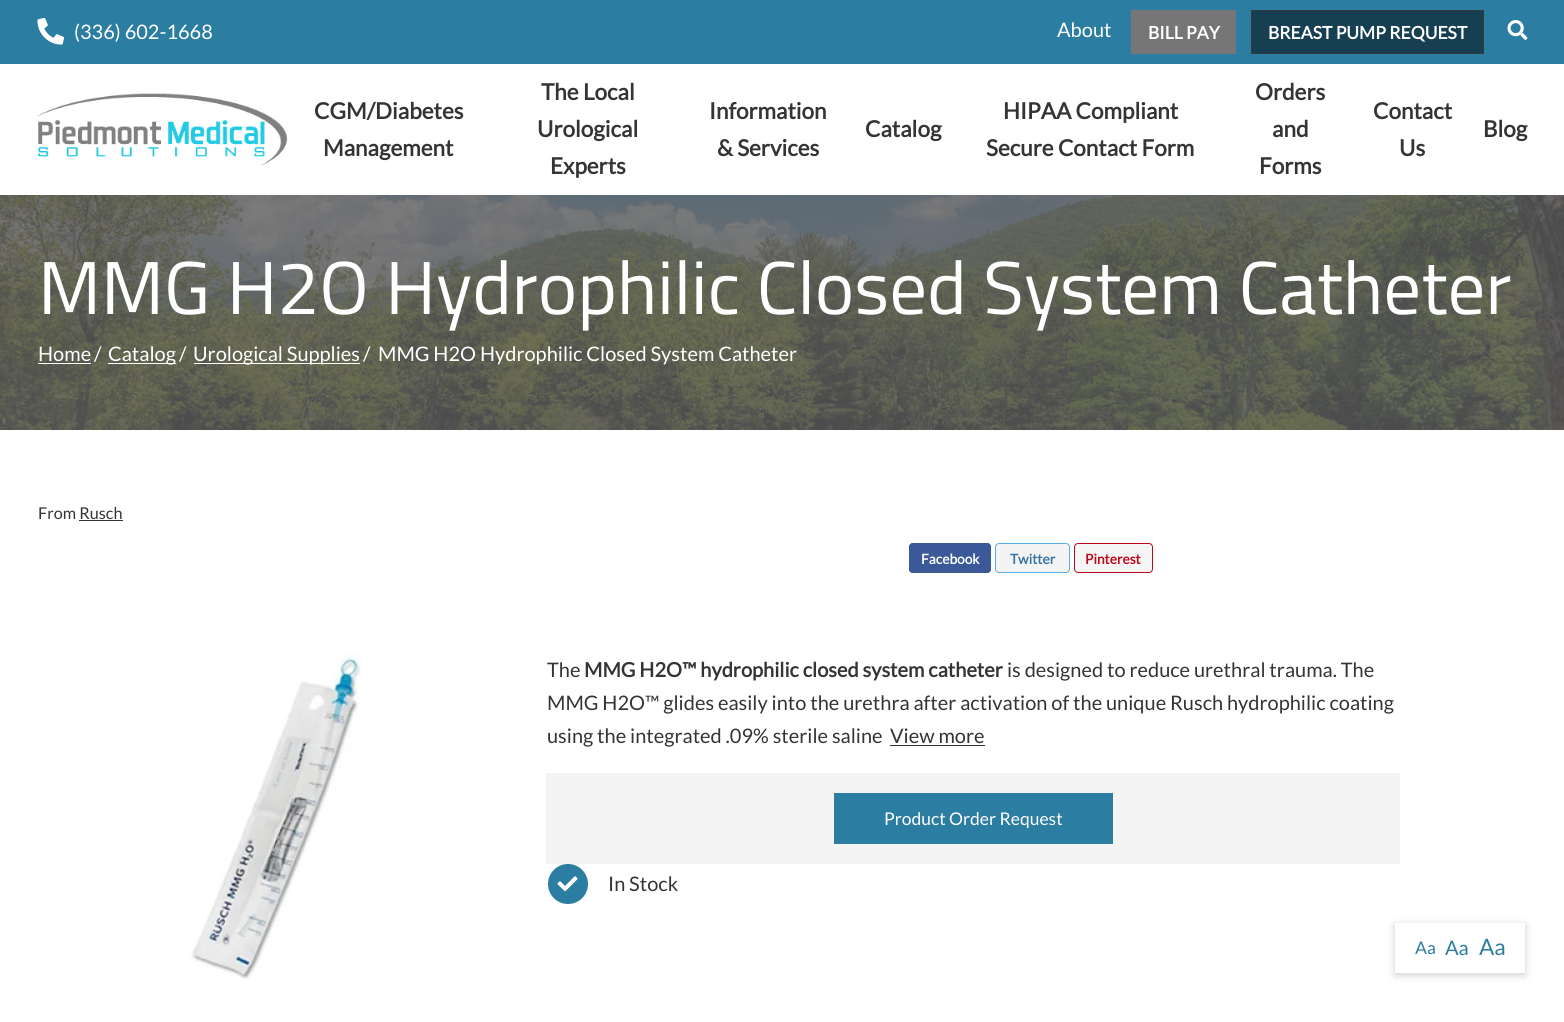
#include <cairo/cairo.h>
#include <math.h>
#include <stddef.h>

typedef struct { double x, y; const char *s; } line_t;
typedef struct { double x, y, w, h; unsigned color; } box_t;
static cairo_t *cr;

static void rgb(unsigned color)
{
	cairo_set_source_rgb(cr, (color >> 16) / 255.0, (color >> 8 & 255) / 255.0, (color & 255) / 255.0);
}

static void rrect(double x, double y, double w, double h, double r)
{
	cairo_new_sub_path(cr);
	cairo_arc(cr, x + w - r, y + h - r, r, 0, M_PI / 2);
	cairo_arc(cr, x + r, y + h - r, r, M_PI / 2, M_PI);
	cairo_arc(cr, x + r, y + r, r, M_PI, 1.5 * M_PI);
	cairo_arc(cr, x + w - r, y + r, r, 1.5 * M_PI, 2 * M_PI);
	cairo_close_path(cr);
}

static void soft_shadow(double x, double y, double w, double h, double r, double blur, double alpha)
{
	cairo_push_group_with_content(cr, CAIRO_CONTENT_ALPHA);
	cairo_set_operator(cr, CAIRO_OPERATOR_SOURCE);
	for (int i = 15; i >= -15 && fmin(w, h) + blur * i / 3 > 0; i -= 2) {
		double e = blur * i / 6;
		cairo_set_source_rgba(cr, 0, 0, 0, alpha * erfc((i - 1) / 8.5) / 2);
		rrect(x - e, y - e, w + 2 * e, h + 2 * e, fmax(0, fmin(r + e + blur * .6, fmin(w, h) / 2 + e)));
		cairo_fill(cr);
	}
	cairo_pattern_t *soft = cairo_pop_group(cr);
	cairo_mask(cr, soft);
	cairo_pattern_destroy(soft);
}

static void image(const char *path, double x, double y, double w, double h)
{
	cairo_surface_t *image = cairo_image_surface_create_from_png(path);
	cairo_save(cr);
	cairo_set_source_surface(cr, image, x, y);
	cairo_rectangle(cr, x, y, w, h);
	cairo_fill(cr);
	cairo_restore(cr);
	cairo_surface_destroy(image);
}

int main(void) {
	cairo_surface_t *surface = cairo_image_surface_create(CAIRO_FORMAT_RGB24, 1564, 1022);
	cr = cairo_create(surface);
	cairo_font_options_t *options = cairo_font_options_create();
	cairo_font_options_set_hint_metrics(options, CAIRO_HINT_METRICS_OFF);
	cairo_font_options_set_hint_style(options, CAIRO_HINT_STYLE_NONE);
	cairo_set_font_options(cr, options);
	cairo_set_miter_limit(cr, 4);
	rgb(0xffffff);
	cairo_paint(cr);
	rgb(0x2c7da2);
	cairo_rectangle(cr, 0, 0, 1564, 64);
	cairo_fill(cr);
	image("img/1.png", 37, 18, 28, 27);
	rgb(0x767676);
	cairo_rectangle(cr, 1131, 10, 105, 44);
	cairo_fill(cr);
	rgb(0x163f52);
	cairo_rectangle(cr, 1251.5, 10.5, 232, 43);
	cairo_fill_preserve(cr);
	rgb(0x343a40);
	cairo_set_line_width(cr, 1);
	cairo_stroke(cr);
	image("img/2.png", 1507, 20, 21, 20);
	image("img/3.png", 37, 93, 251, 72);
	image("img/4.png", 0, 195, 1564, 235);
	{
		static const box_t items[] = {
			{38, 363, 53, 1, 0xffffff},
			{108, 363, 68, 1, 0xffffff},
			{194, 363, 166, 1, 0xffffff},
			{79, 520, 44, 1, 0x343434},
		};
		for (size_t i = 0; i < sizeof items / sizeof *items; i++) {
			rgb(items[i].color);
			cairo_rectangle(cr, items[i].x, items[i].y, items[i].w, items[i].h);
			cairo_fill(cr);
		}
	}
	rgb(0x3b5998);
	rrect(909, 543, 82, 30, 4);
	cairo_fill(cr);
	cairo_new_path(cr);
	cairo_move_to(cr, 913, 545);
	cairo_line_to(cr, 990, 545);
	cairo_curve_to(cr, 989, 544, 988, 544, 988, 544);
	cairo_line_to(cr, 912, 544);
	cairo_curve_to(cr, 911, 544, 910, 545, 910, 546);
	cairo_line_to(cr, 910, 568);
	cairo_curve_to(cr, 910, 569, 910, 570, 911, 571);
	cairo_line_to(cr, 911, 551);
	cairo_curve_to(cr, 911, 550, 910, 545, 913, 545);
	cairo_close_path(cr);
	cairo_fill(cr);
	rrect(909.5, 543.5, 81, 29, 3.5);
	cairo_stroke(cr);
	rgb(0xf4f4f4);
	rrect(995.5, 543.5, 74, 29, 3.5);
	cairo_fill_preserve(cr);
	rgb(0x55acee);
	cairo_stroke(cr);
	rgb(0xf5f5f5);
	rrect(1074.5, 543.5, 78, 29, 3.5);
	cairo_fill_preserve(cr);
	rgb(0xbd081c);
	cairo_stroke(cr);
	image("img/5.png", 191, 654, 171, 325);
	{
		static const box_t items[] = {
			{295, 1021, 3, 1, 0xfafdfc},
			{890, 745, 95, 1, 0x343434},
			{546, 773, 854, 91, 0xf4f4f4},
			{834, 793, 279, 51, 0x2c7da2},
		};
		for (size_t i = 0; i < sizeof items / sizeof *items; i++) {
			rgb(items[i].color);
			cairo_rectangle(cr, items[i].x, items[i].y, items[i].w, items[i].h);
			cairo_fill(cr);
		}
	}
	cairo_arc(cr, 568, 884, 20, 0, 2 * M_PI);
	cairo_fill(cr);
	image("img/6.png", 557, 876, 21, 16);
	rgb(0x000000);
	soft_shadow(1395, 925, 130, 50, 0, 4, 0.2);
	rgb(0xffffff);
	cairo_rectangle(cr, 1395, 923, 130, 50);
	cairo_fill(cr);
	cairo_select_font_face(cr, "Lato", CAIRO_FONT_SLANT_NORMAL, CAIRO_FONT_WEIGHT_NORMAL);
	cairo_set_font_size(cr, 20);
	cairo_move_to(cr, 74, 39);
	cairo_show_text(cr, "(336) 602-1668");
	cairo_move_to(cr, 1057, 37);
	cairo_show_text(cr, "About");
	cairo_select_font_face(cr, "Lato", CAIRO_FONT_SLANT_NORMAL, CAIRO_FONT_WEIGHT_BOLD);
	cairo_set_font_size(cr, 17.5);
	cairo_move_to(cr, 1148, 39);
	cairo_show_text(cr, "BILL PAY");
	cairo_move_to(cr, 1268, 39);
	cairo_show_text(cr, "BREAST PUMP REQUEST");
	cairo_set_font_size(cr, 22.5);
	rgb(0x343434);
	{
		static const line_t items[] = {
			{314, 119, "CGM/Diabetes"},
			{323, 156, "Management"},
			{541, 100, "The Local"},
			{537, 137, "Urological"},
			{550, 174, "Experts"},
			{709, 119, "Information"},
			{717, 156, "& Services"},
			{865, 137, "Catalog"},
			{1003, 119, "HIPAA Compliant"},
			{986, 156, "Secure Contact Form"},
			{1255, 100, "Orders"},
			{1272, 137, "and"},
			{1259, 174, "Forms"},
			{1373, 119, "Contact"},
			{1399, 156, "Us"},
			{1483, 137, "Blog"},
		};
		for (size_t i = 0; i < sizeof items / sizeof *items; i++) {
			cairo_move_to(cr, items[i].x, items[i].y);
			cairo_show_text(cr, items[i].s);
		}
	}
	cairo_select_font_face(cr, "Titillium Web", CAIRO_FONT_SLANT_NORMAL, CAIRO_FONT_WEIGHT_NORMAL);
	cairo_set_font_size(cr, 75);
	rgb(0xffffff);
	cairo_move_to(cr, 38, 314);
	cairo_show_text(cr, "MMG H2O Hydrophilic Closed System Catheter");
	cairo_select_font_face(cr, "Lato", CAIRO_FONT_SLANT_NORMAL, CAIRO_FONT_WEIGHT_NORMAL);
	cairo_set_font_size(cr, 20);
	{
		static const line_t items[] = {
			{38, 361, "Home"},
			{94, 361, "/"},
			{108, 361, "Catalog"},
			{179, 361, "/"},
			{193, 361, "Urological Supplies"},
			{363, 361, "/"},
			{378, 361, "MMG H2O Hydrophilic Closed System Catheter"},
		};
		for (size_t i = 0; i < sizeof items / sizeof *items; i++) {
			cairo_move_to(cr, items[i].x, items[i].y);
			cairo_show_text(cr, items[i].s);
		}
	}
	cairo_set_font_size(cr, 16.25);
	rgb(0x343434);
	cairo_move_to(cr, 38, 519);
	cairo_show_text(cr, "From Rusch");
	cairo_select_font_face(cr, "Lato", CAIRO_FONT_SLANT_NORMAL, CAIRO_FONT_WEIGHT_BOLD);
	cairo_set_font_size(cr, 13.75);
	rgb(0xffffff);
	cairo_move_to(cr, 921, 564);
	cairo_show_text(cr, "Facebook");
	rgb(0x3975a2);
	cairo_move_to(cr, 1010, 564);
	cairo_show_text(cr, "Twitter");
	rgb(0xbd081c);
	cairo_move_to(cr, 1085, 564);
	cairo_show_text(cr, "Pinterest");
	cairo_select_font_face(cr, "Lato", CAIRO_FONT_SLANT_NORMAL, CAIRO_FONT_WEIGHT_NORMAL);
	cairo_set_font_size(cr, 20);
	rgb(0x343434);
	cairo_move_to(cr, 547, 677);
	cairo_show_text(cr, "The");
	cairo_select_font_face(cr, "Lato", CAIRO_FONT_SLANT_NORMAL, CAIRO_FONT_WEIGHT_BOLD);
	cairo_move_to(cr, 584, 677);
	cairo_show_text(cr, "MMG H2O™ hydrophilic closed system catheter");
	cairo_select_font_face(cr, "Lato", CAIRO_FONT_SLANT_NORMAL, CAIRO_FONT_WEIGHT_NORMAL);
	{
		static const line_t items[] = {
			{1007, 677, "is designed to reduce urethral trauma. The"},
			{547, 710, "MMG H2O™ glides easily into the urethra after activation of the unique Rusch hydrophilic coating"},
			{547, 743, "using the integrated .09% sterile saline"},
			{890, 743, "View more"},
		};
		for (size_t i = 0; i < sizeof items / sizeof *items; i++) {
			cairo_move_to(cr, items[i].x, items[i].y);
			cairo_show_text(cr, items[i].s);
		}
	}
	cairo_set_font_size(cr, 17.5);
	rgb(0xffffff);
	cairo_move_to(cr, 884, 825);
	cairo_show_text(cr, "Product Order Request");
	cairo_set_font_size(cr, 20);
	rgb(0x343434);
	cairo_move_to(cr, 608, 891);
	cairo_show_text(cr, "In Stock");
	cairo_set_font_size(cr, 17.5);
	rgb(0x2c7da2);
	cairo_move_to(cr, 1415, 954);
	cairo_show_text(cr, "Aa");
	cairo_set_font_size(cr, 20);
	cairo_move_to(cr, 1445, 955);
	cairo_show_text(cr, "Aa");
	cairo_set_font_size(cr, 22.5);
	cairo_move_to(cr, 1479, 955);
	cairo_show_text(cr, "Aa");
	cairo_surface_write_to_png(surface, "page.png");
	cairo_font_options_destroy(options);
	cairo_destroy(cr);
	cairo_surface_destroy(surface);
	return 0;
}
